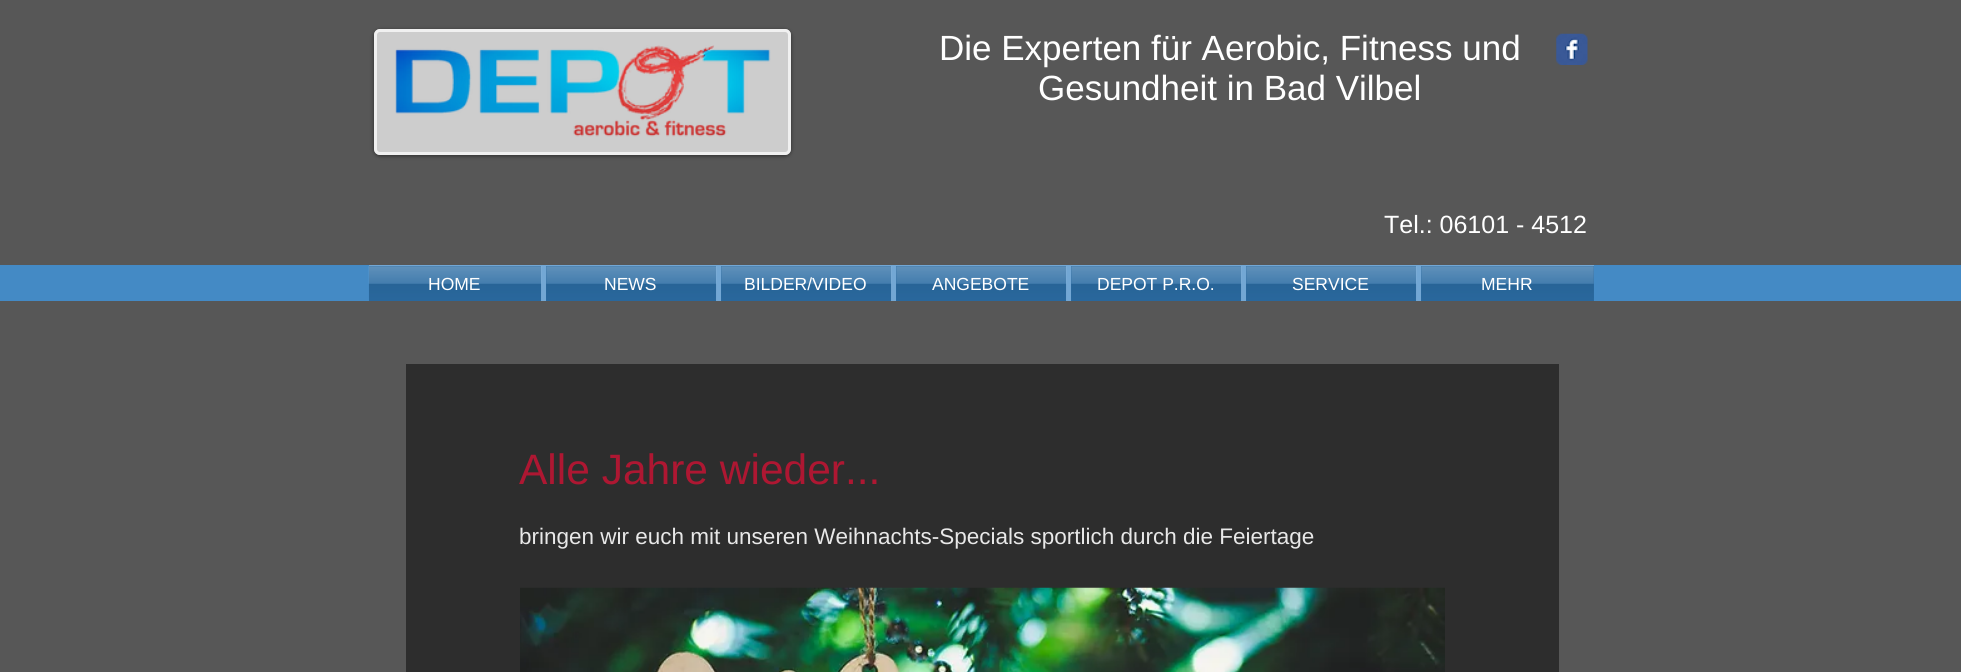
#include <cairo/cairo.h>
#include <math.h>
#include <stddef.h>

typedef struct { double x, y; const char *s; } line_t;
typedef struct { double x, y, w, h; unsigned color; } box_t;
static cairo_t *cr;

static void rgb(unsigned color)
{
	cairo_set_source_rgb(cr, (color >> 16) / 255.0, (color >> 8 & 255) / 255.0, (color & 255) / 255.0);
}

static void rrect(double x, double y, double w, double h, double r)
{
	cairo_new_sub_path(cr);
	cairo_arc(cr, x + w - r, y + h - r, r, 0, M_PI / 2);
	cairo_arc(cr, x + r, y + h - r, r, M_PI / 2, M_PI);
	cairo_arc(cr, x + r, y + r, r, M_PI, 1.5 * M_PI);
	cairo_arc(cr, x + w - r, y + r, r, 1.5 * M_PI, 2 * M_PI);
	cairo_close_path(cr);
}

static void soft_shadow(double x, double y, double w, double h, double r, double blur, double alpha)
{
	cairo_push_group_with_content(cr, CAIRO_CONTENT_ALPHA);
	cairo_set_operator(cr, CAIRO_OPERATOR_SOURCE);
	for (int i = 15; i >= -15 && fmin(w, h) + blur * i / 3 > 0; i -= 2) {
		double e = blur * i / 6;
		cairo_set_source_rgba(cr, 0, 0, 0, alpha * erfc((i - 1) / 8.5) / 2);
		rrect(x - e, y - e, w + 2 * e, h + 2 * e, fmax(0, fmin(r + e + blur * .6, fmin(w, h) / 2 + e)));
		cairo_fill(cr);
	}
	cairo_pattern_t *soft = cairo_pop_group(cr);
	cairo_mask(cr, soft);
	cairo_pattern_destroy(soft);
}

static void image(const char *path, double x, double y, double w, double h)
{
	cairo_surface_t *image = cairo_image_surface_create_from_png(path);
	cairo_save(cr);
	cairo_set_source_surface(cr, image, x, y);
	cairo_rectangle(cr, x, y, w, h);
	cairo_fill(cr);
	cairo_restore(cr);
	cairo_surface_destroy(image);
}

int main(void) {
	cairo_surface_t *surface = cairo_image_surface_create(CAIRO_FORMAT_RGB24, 1961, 672);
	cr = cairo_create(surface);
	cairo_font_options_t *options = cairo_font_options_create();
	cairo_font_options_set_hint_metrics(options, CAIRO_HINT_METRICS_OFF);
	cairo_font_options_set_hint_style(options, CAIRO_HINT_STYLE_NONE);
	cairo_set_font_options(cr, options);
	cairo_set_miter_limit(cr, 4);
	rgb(0x575757);
	cairo_paint(cr);
	cairo_save(cr);
	cairo_set_fill_rule(cr, CAIRO_FILL_RULE_EVEN_ODD);
	cairo_new_path(cr);
	cairo_move_to(cr, 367, 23);
	cairo_line_to(cr, 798, 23);
	cairo_line_to(cr, 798, 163);
	cairo_line_to(cr, 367, 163);
	cairo_close_path(cr);
	cairo_move_to(cr, 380, 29);
	cairo_line_to(cr, 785, 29);
	cairo_curve_to(cr, 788.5, 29, 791, 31.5, 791, 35);
	cairo_line_to(cr, 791, 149);
	cairo_curve_to(cr, 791, 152.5, 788.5, 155, 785, 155);
	cairo_line_to(cr, 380, 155);
	cairo_curve_to(cr, 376.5, 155, 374, 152.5, 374, 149);
	cairo_line_to(cr, 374, 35);
	cairo_curve_to(cr, 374, 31.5, 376.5, 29, 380, 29);
	cairo_close_path(cr);
	cairo_clip(cr);
	rgb(0x000000);
	soft_shadow(374, 30, 417, 126, 6, 2, 0.5);
	cairo_restore(cr);
	cairo_set_source_rgba(cr, 1, 1, 1, 0.7);
	rrect(374, 29, 417, 126, 6);
	cairo_fill(cr);
	rrect(375.5, 30.5, 414, 123, 4.5);
	cairo_set_line_width(cr, 3);
	cairo_stroke(cr);
	image("img/1.png", 395, 45, 376, 92);
	image("img/2.png", 1556, 33, 32, 32);
	{
		static const box_t items[] = {
			{0, 265, 1961, 36, 0x448ac5},
			{369, 265, 1225, 36, 0x73a7d4},
			{369, 266, 172, 35, 0x2b6ca3},
		};
		for (size_t i = 0; i < sizeof items / sizeof *items; i++) {
			rgb(items[i].color);
			cairo_rectangle(cr, items[i].x, items[i].y, items[i].w, items[i].h);
			cairo_fill(cr);
		}
	}
	image("img/3.png", 368, 266, 174, 35);
	cairo_rectangle(cr, 546, 266, 170, 35);
	cairo_fill(cr);
	image("img/4.png", 546, 266, 171, 35);
	cairo_rectangle(cr, 721, 266, 170, 35);
	cairo_fill(cr);
	image("img/4.png", 721, 266, 171, 35);
	cairo_rectangle(cr, 896, 266, 170, 35);
	cairo_fill(cr);
	image("img/4.png", 896, 266, 171, 35);
	cairo_rectangle(cr, 1071, 266, 170, 35);
	cairo_fill(cr);
	image("img/4.png", 1071, 266, 171, 35);
	cairo_rectangle(cr, 1246, 266, 170, 35);
	cairo_fill(cr);
	image("img/4.png", 1246, 266, 171, 35);
	cairo_rectangle(cr, 1421, 266, 173, 35);
	cairo_fill(cr);
	image("img/5.png", 1421, 266, 173, 35);
	rgb(0x2d2d2d);
	cairo_rectangle(cr, 406, 364, 1153, 308);
	cairo_fill(cr);
	image("img/6.png", 520, 587, 925, 85);
	cairo_select_font_face(cr, "Liberation Sans", CAIRO_FONT_SLANT_NORMAL, CAIRO_FONT_WEIGHT_NORMAL);
	cairo_set_font_size(cr, 35);
	rgb(0xffffff);
	cairo_move_to(cr, 939, 60);
	cairo_show_text(cr, "Die Experten für Aerobic, Fitness und");
	cairo_move_to(cr, 1038, 100);
	cairo_show_text(cr, "Gesundheit in Bad Vilbel");
	cairo_set_font_size(cr, 25);
	cairo_move_to(cr, 1384, 233);
	cairo_show_text(cr, "Tel.: 06101 - 4512");
	cairo_set_font_size(cr, 17.5);
	{
		static const line_t items[] = {
			{428, 290, "HOME"},
			{604, 290, "NEWS"},
			{744, 290, "BILDER/VIDEO"},
			{932, 290, "ANGEBOTE"},
			{1097, 290, "DEPOT P.R.O."},
			{1292, 290, "SERVICE"},
			{1481, 290, "MEHR"},
		};
		for (size_t i = 0; i < sizeof items / sizeof *items; i++) {
			cairo_move_to(cr, items[i].x, items[i].y);
			cairo_show_text(cr, items[i].s);
		}
	}
	cairo_set_font_size(cr, 42.5);
	rgb(0xae1732);
	cairo_move_to(cr, 519, 484);
	cairo_show_text(cr, "Alle Jahre wieder...");
	cairo_set_font_size(cr, 22.5);
	rgb(0xe8e8e8);
	cairo_move_to(cr, 519, 544);
	cairo_show_text(cr, "bringen wir euch mit unseren Weihnachts-Specials sportlich durch die Feiertage");
	cairo_surface_write_to_png(surface, "page.png");
	cairo_font_options_destroy(options);
	cairo_destroy(cr);
	cairo_surface_destroy(surface);
	return 0;
}
